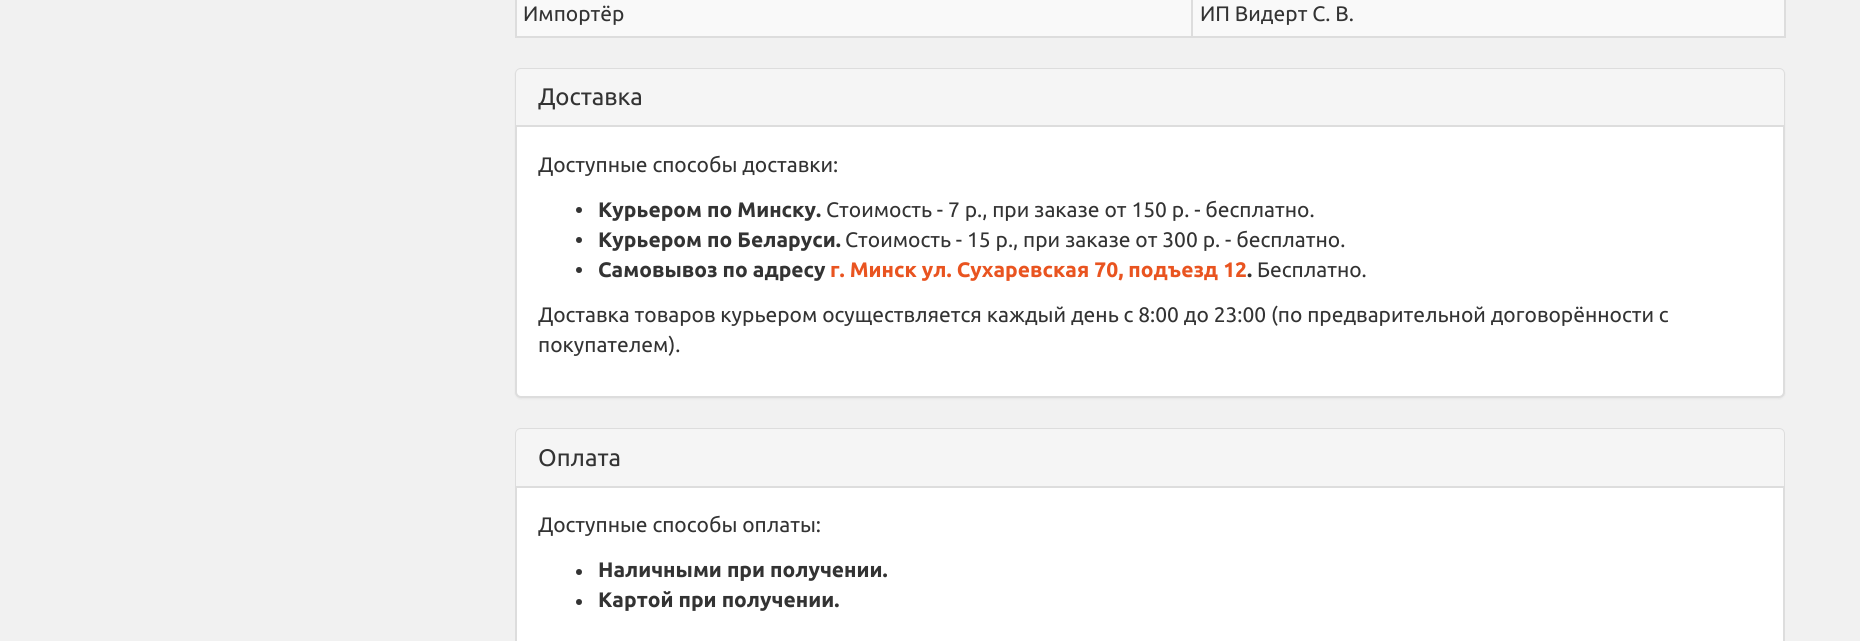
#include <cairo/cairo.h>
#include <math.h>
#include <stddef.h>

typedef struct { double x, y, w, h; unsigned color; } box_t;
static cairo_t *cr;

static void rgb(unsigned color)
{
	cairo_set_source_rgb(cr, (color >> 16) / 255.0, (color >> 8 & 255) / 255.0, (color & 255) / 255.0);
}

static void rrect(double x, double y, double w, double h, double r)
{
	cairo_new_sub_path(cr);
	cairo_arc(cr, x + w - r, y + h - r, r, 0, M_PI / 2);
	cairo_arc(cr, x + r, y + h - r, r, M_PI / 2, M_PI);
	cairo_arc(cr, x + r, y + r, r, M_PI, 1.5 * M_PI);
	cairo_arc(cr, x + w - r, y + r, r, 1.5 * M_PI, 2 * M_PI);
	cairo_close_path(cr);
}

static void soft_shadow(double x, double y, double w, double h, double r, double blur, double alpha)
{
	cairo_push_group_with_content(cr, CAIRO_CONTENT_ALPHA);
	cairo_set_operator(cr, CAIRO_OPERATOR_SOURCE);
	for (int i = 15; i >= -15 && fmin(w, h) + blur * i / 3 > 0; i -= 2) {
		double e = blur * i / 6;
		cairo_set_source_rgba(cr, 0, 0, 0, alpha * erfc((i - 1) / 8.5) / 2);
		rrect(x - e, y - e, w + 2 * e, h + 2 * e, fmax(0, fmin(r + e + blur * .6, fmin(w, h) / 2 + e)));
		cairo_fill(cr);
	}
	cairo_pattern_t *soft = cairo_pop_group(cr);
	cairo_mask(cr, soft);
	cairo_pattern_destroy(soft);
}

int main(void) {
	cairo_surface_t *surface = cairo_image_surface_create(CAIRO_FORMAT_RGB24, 1860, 641);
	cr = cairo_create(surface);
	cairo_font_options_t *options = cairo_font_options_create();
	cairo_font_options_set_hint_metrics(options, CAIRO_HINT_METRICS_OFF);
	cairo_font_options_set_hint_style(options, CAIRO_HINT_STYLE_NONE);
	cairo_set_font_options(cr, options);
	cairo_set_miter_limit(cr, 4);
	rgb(0xf1f1f1);
	cairo_paint(cr);
	{
		static const box_t items[] = {
			{1784, 0, 2, 38, 0xdddddd},
			{515, 36, 1270, 2, 0xdddddd},
			{515, 0, 2, 38, 0xdddddd},
			{517, 0, 1267, 36, 0xf9f9f9},
			{1191, 0, 2, 38, 0xdddddd},
		};
		for (size_t i = 0; i < sizeof items / sizeof *items; i++) {
			rgb(items[i].color);
			cairo_rectangle(cr, items[i].x, items[i].y, items[i].w, items[i].h);
			cairo_fill(cr);
		}
	}
	rgb(0x000000);
	soft_shadow(515, 69, 1270, 330, 6, 1, 0.05);
	rgb(0xffffff);
	rrect(516, 69, 1268, 328, 5);
	cairo_fill_preserve(cr);
	rgb(0xdddddd);
	cairo_stroke(cr);
	rgb(0xf5f5f5);
	cairo_new_path(cr);
	cairo_move_to(cr, 521, 69);
	cairo_line_to(cr, 1779, 69);
	cairo_curve_to(cr, 1782, 69, 1784, 71, 1784, 74);
	cairo_line_to(cr, 1784, 126);
	cairo_line_to(cr, 516, 126);
	cairo_line_to(cr, 516, 74);
	cairo_curve_to(cr, 516, 71, 518, 69, 521, 69);
	cairo_close_path(cr);
	cairo_fill(cr);
	rgb(0xdddddd);
	cairo_rectangle(cr, 516, 125, 1268, 2);
	cairo_fill(cr);
	rgb(0x333333);
	cairo_arc(cr, 579, 210, 3, 0, 2 * M_PI);
	cairo_fill(cr);
	cairo_arc(cr, 579, 240, 3, 0, 2 * M_PI);
	cairo_fill(cr);
	cairo_arc(cr, 579, 270, 3, 0, 2 * M_PI);
	cairo_fill(cr);
	rgb(0xffffff);
	rrect(516, 429, 1268, 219, 5);
	cairo_fill_preserve(cr);
	rgb(0xdddddd);
	cairo_stroke(cr);
	rgb(0xf5f5f5);
	cairo_new_path(cr);
	cairo_move_to(cr, 521, 429);
	cairo_line_to(cr, 1779, 429);
	cairo_curve_to(cr, 1782, 429, 1784, 431, 1784, 434);
	cairo_line_to(cr, 1784, 488);
	cairo_line_to(cr, 516, 488);
	cairo_line_to(cr, 516, 434);
	cairo_curve_to(cr, 516, 431, 518, 429, 521, 429);
	cairo_close_path(cr);
	cairo_fill(cr);
	rgb(0xdddddd);
	cairo_rectangle(cr, 516, 486, 1268, 2);
	cairo_fill(cr);
	rgb(0x333333);
	cairo_arc(cr, 579, 572, 3, 0, 2 * M_PI);
	cairo_fill(cr);
	cairo_arc(cr, 579, 602, 3, 0, 2 * M_PI);
	cairo_fill(cr);
	cairo_select_font_face(cr, "Ubuntu", CAIRO_FONT_SLANT_NORMAL, CAIRO_FONT_WEIGHT_NORMAL);
	cairo_set_font_size(cr, 21);
	cairo_move_to(cr, 523, 21);
	cairo_show_text(cr, "Импортёр");
	cairo_move_to(cr, 1200, 21);
	cairo_show_text(cr, "ИП Видерт С. В.");
	cairo_set_font_size(cr, 24);
	cairo_move_to(cr, 538, 105);
	cairo_show_text(cr, "Доставка");
	cairo_set_font_size(cr, 21);
	cairo_move_to(cr, 538, 172);
	cairo_show_text(cr, "Доступные способы доставки:");
	cairo_select_font_face(cr, "Ubuntu", CAIRO_FONT_SLANT_NORMAL, CAIRO_FONT_WEIGHT_BOLD);
	cairo_move_to(cr, 598, 217);
	cairo_show_text(cr, "Курьером по Минску.");
	cairo_select_font_face(cr, "Ubuntu", CAIRO_FONT_SLANT_NORMAL, CAIRO_FONT_WEIGHT_NORMAL);
	cairo_move_to(cr, 826, 217);
	cairo_show_text(cr, "Стоимость - 7 р., при заказе от 150 р. - бесплатно.");
	cairo_select_font_face(cr, "Ubuntu", CAIRO_FONT_SLANT_NORMAL, CAIRO_FONT_WEIGHT_BOLD);
	cairo_move_to(cr, 598, 247);
	cairo_show_text(cr, "Курьером по Беларуси.");
	cairo_select_font_face(cr, "Ubuntu", CAIRO_FONT_SLANT_NORMAL, CAIRO_FONT_WEIGHT_NORMAL);
	cairo_move_to(cr, 845, 247);
	cairo_show_text(cr, "Стоимость - 15 р., при заказе от 300 р. - бесплатно.");
	cairo_select_font_face(cr, "Ubuntu", CAIRO_FONT_SLANT_NORMAL, CAIRO_FONT_WEIGHT_BOLD);
	cairo_move_to(cr, 598, 277);
	cairo_show_text(cr, "Самовывоз по адресу");
	rgb(0xe95420);
	cairo_move_to(cr, 830, 277);
	cairo_show_text(cr, "г. Минск ул. Сухаревская 70, подъезд 12");
	cairo_select_font_face(cr, "Ubuntu", CAIRO_FONT_SLANT_NORMAL, CAIRO_FONT_WEIGHT_NORMAL);
	rgb(0x333333);
	cairo_move_to(cr, 1257, 277);
	cairo_show_text(cr, "Бесплатно.");
	cairo_select_font_face(cr, "Ubuntu", CAIRO_FONT_SLANT_NORMAL, CAIRO_FONT_WEIGHT_BOLD);
	cairo_move_to(cr, 1247, 277);
	cairo_show_text(cr, ".");
	cairo_select_font_face(cr, "Ubuntu", CAIRO_FONT_SLANT_NORMAL, CAIRO_FONT_WEIGHT_NORMAL);
	cairo_move_to(cr, 538, 322);
	cairo_show_text(cr, "Доставка товаров курьером осуществляется каждый день с 8:00 до 23:00 (по предварительной договорённости с");
	cairo_move_to(cr, 538, 352);
	cairo_show_text(cr, "покупателем).");
	cairo_set_font_size(cr, 24);
	cairo_move_to(cr, 538, 466);
	cairo_show_text(cr, "Оплата");
	cairo_set_font_size(cr, 21);
	cairo_move_to(cr, 538, 532);
	cairo_show_text(cr, "Доступные способы оплаты:");
	cairo_select_font_face(cr, "Ubuntu", CAIRO_FONT_SLANT_NORMAL, CAIRO_FONT_WEIGHT_BOLD);
	cairo_move_to(cr, 598, 577);
	cairo_show_text(cr, "Наличными при получении.");
	cairo_move_to(cr, 598, 607);
	cairo_show_text(cr, "Картой при получении.");
	cairo_surface_write_to_png(surface, "page.png");
	cairo_font_options_destroy(options);
	cairo_destroy(cr);
	cairo_surface_destroy(surface);
	return 0;
}
